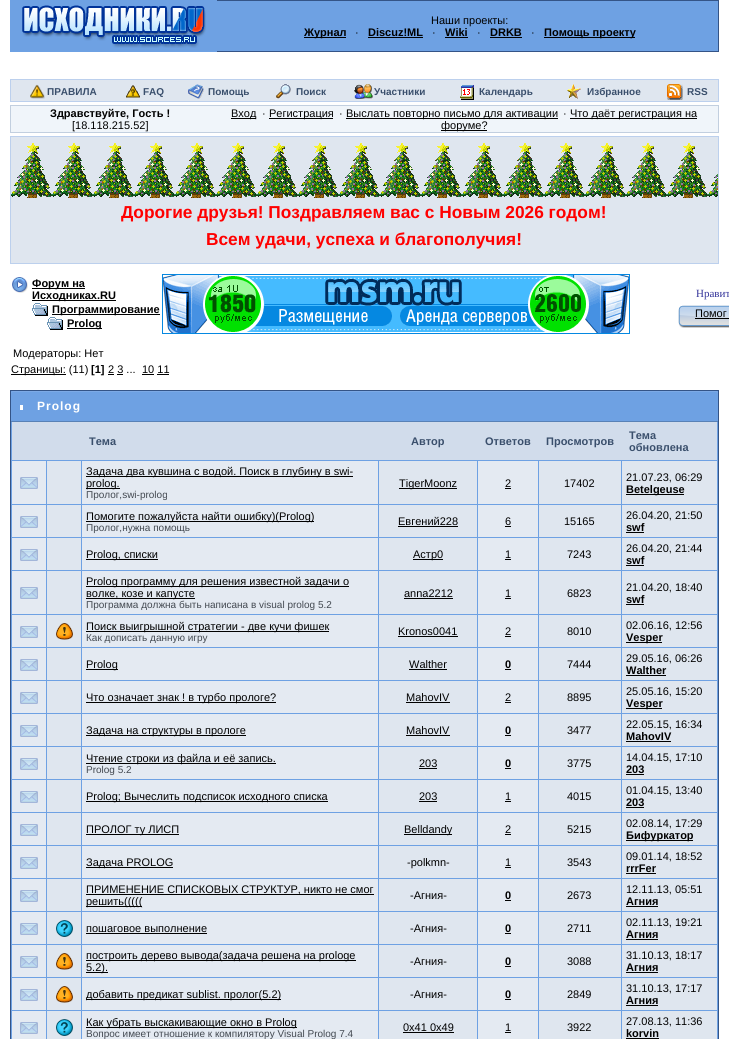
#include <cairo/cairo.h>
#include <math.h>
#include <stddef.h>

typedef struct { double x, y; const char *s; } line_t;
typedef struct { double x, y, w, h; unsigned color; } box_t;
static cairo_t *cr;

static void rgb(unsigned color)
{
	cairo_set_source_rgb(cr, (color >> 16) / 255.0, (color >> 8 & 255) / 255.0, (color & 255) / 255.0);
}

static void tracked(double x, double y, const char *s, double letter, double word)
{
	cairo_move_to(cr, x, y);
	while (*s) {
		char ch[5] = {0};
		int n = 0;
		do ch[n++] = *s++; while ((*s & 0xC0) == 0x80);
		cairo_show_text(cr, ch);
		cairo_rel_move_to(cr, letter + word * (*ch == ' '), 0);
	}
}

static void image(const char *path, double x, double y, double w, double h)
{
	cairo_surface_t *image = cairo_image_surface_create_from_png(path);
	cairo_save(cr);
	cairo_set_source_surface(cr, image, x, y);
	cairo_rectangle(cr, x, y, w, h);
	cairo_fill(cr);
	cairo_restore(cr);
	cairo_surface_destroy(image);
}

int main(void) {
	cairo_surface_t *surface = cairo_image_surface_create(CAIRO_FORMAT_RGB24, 729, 1039);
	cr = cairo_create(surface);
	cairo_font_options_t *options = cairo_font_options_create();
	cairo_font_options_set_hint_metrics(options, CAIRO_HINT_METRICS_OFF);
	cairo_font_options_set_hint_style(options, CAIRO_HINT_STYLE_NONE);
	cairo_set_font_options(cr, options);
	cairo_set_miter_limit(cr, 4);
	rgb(0xffffff);
	cairo_paint(cr);
	rgb(0x6ea1e3);
	cairo_rectangle(cr, 217, 1, 501, 50);
	cairo_fill(cr);
	cairo_rectangle(cr, 10.5, 0.5, 708, 51);
	rgb(0x345487);
	cairo_set_line_width(cr, 1);
	cairo_stroke(cr);
	image("img/1.png", 10, 0, 207, 52);
	{
		static const box_t items[] = {
			{304, 37, 42, 1, 0x000000},
			{368, 37, 55, 1, 0x000000},
			{445, 37, 23, 1, 0x000000},
			{490, 37, 32, 1, 0x000000},
			{544, 37, 91, 1, 0x000000},
		};
		for (size_t i = 0; i < sizeof items / sizeof *items; i++) {
			rgb(items[i].color);
			cairo_rectangle(cr, items[i].x, items[i].y, items[i].w, items[i].h);
			cairo_fill(cr);
		}
	}
	rgb(0xdfe6ef);
	cairo_rectangle(cr, 10.5, 79.5, 708, 22);
	cairo_fill_preserve(cr);
	rgb(0xbcd0ed);
	cairo_stroke(cr);
	image("img/2.png", 30, 84, 15, 15);
	image("img/3.png", 126, 85, 14, 13);
	image("img/4.png", 188, 84, 16, 15);
	image("img/5.png", 276, 84, 15, 15);
	image("img/6.png", 354, 84, 19, 15);
	image("img/7.png", 460, 85, 14, 15);
	image("img/8.png", 567, 84, 14, 15);
	image("img/9.png", 667, 84, 16, 16);
	rgb(0xf0f5fa);
	cairo_rectangle(cr, 10.5, 105.5, 708, 27);
	cairo_fill_preserve(cr);
	rgb(0xc2cfdf);
	cairo_stroke(cr);
	{
		static const box_t items[] = {
			{231, 118, 25, 1, 0x000000},
			{269, 118, 64, 1, 0x000000},
			{346, 118, 212, 1, 0x000000},
			{570, 118, 127, 1, 0x000000},
			{441, 130, 46, 1, 0x000000},
		};
		for (size_t i = 0; i < sizeof items / sizeof *items; i++) {
			rgb(items[i].color);
			cairo_rectangle(cr, items[i].x, items[i].y, items[i].w, items[i].h);
			cairo_fill(cr);
		}
	}
	rgb(0xdfe6ef);
	cairo_rectangle(cr, 10.5, 136.5, 708, 127);
	cairo_fill_preserve(cr);
	rgb(0xbcd0ed);
	cairo_stroke(cr);
	image("img/10.png", 11, 143, 707, 55);
	image("img/11.png", 12, 277, 16, 16);
	rgb(0x000000);
	cairo_rectangle(cr, 32, 288, 53, 1);
	cairo_fill(cr);
	cairo_rectangle(cr, 32, 300, 84, 1);
	cairo_fill(cr);
	image("img/12.png", 32, 303, 16, 13);
	cairo_rectangle(cr, 52, 314, 108, 1);
	cairo_fill(cr);
	image("img/12.png", 47, 317, 16, 13);
	cairo_rectangle(cr, 67, 328, 35, 1);
	cairo_fill(cr);
	image("img/13.png", 162, 274, 468, 60);
	image("img/14.png", 678, 305, 51, 23);
	{
		static const box_t items[] = {
			{695, 318, 34, 1, 0x000000},
			{11, 374, 55, 1, 0x000000},
			{108, 374, 6, 1, 0x000000},
			{142, 374, 12, 1, 0x000000},
			{117, 374, 6, 1, 0x000000},
			{157, 374, 12, 1, 0x000000},
		};
		for (size_t i = 0; i < sizeof items / sizeof *items; i++) {
			rgb(items[i].color);
			cairo_rectangle(cr, items[i].x, items[i].y, items[i].w, items[i].h);
			cairo_fill(cr);
		}
	}
	rgb(0x6ea1e3);
	cairo_rectangle(cr, 10.5, 390.5, 708, 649);
	cairo_fill_preserve(cr);
	rgb(0x345487);
	cairo_stroke(cr);
	rgb(0x5881b6);
	cairo_rectangle(cr, 11, 421, 707, 1);
	cairo_fill(cr);
	rgb(0x7daae6);
	cairo_new_path(cr);
	cairo_move_to(cr, 13, 392);
	cairo_line_to(cr, 716, 392);
	cairo_curve_to(cr, 717, 392, 718, 393, 718, 394);
	cairo_curve_to(cr, 718, 393, 718, 391, 716, 391);
	cairo_line_to(cr, 13, 391);
	cairo_curve_to(cr, 11, 391, 11, 393, 11, 394);
	cairo_curve_to(cr, 11, 393, 12, 392, 13, 392);
	cairo_close_path(cr);
	cairo_fill(cr);
	{
		static const box_t items[] = {
			{20, 405, 3, 5, 0xffffff},
			{12, 422, 705, 38, 0xd1dceb},
			{12, 461, 34, 43, 0xe4eaf2},
		};
		for (size_t i = 0; i < sizeof items / sizeof *items; i++) {
			rgb(items[i].color);
			cairo_rectangle(cr, items[i].x, items[i].y, items[i].w, items[i].h);
			cairo_fill(cr);
		}
	}
	image("img/15.png", 20, 477, 18, 12);
	{
		static const box_t items[] = {
			{47, 461, 34, 43, 0xdfe6ef},
			{82, 461, 296, 43, 0xe4eaf2},
			{86, 476, 267, 1, 0x000000},
			{86, 488, 34, 1, 0x000000},
			{379, 461, 98, 43, 0xdfe6ef},
			{399, 488, 58, 1, 0x000000},
			{478, 461, 60, 43, 0xe4eaf2},
			{505, 488, 6, 1, 0x000000},
			{539, 461, 82, 43, 0xdfe6ef},
			{622, 461, 95, 43, 0xdfe6ef},
			{626, 494, 58, 1, 0x000000},
			{12, 505, 34, 32, 0xe4eaf2},
		};
		for (size_t i = 0; i < sizeof items / sizeof *items; i++) {
			rgb(items[i].color);
			cairo_rectangle(cr, items[i].x, items[i].y, items[i].w, items[i].h);
			cairo_fill(cr);
		}
	}
	image("img/15.png", 20, 516, 18, 12);
	{
		static const box_t items[] = {
			{47, 505, 34, 32, 0xdfe6ef},
			{82, 505, 296, 32, 0xe4eaf2},
			{86, 521, 228, 1, 0x000000},
			{379, 505, 98, 32, 0xdfe6ef},
			{398, 526, 60, 1, 0x000000},
			{478, 505, 60, 32, 0xe4eaf2},
			{505, 526, 6, 1, 0x000000},
			{539, 505, 82, 32, 0xdfe6ef},
			{622, 505, 95, 32, 0xdfe6ef},
			{626, 532, 18, 1, 0x000000},
			{12, 538, 34, 32, 0xe4eaf2},
		};
		for (size_t i = 0; i < sizeof items / sizeof *items; i++) {
			rgb(items[i].color);
			cairo_rectangle(cr, items[i].x, items[i].y, items[i].w, items[i].h);
			cairo_fill(cr);
		}
	}
	image("img/15.png", 20, 549, 18, 12);
	{
		static const box_t items[] = {
			{47, 538, 34, 32, 0xdfe6ef},
			{82, 538, 296, 32, 0xe4eaf2},
			{86, 559, 72, 1, 0x000000},
			{379, 538, 98, 32, 0xdfe6ef},
			{413, 559, 30, 1, 0x000000},
			{478, 538, 60, 32, 0xe4eaf2},
			{505, 559, 6, 1, 0x000000},
			{539, 538, 82, 32, 0xdfe6ef},
			{622, 538, 95, 32, 0xdfe6ef},
			{626, 565, 18, 1, 0x000000},
			{12, 571, 34, 43, 0xe4eaf2},
		};
		for (size_t i = 0; i < sizeof items / sizeof *items; i++) {
			rgb(items[i].color);
			cairo_rectangle(cr, items[i].x, items[i].y, items[i].w, items[i].h);
			cairo_fill(cr);
		}
	}
	image("img/15.png", 20, 587, 18, 12);
	{
		static const box_t items[] = {
			{47, 571, 34, 43, 0xdfe6ef},
			{82, 571, 296, 43, 0xe4eaf2},
			{86, 586, 263, 1, 0x000000},
			{86, 598, 109, 1, 0x000000},
			{379, 571, 98, 43, 0xdfe6ef},
			{404, 598, 49, 1, 0x000000},
			{478, 571, 60, 43, 0xe4eaf2},
			{505, 598, 6, 1, 0x000000},
			{539, 571, 82, 43, 0xdfe6ef},
			{622, 571, 95, 43, 0xdfe6ef},
			{626, 604, 18, 1, 0x000000},
			{12, 615, 34, 32, 0xe4eaf2},
		};
		for (size_t i = 0; i < sizeof items / sizeof *items; i++) {
			rgb(items[i].color);
			cairo_rectangle(cr, items[i].x, items[i].y, items[i].w, items[i].h);
			cairo_fill(cr);
		}
	}
	image("img/15.png", 20, 626, 18, 12);
	rgb(0xdfe6ef);
	cairo_rectangle(cr, 47, 615, 34, 32);
	cairo_fill(cr);
	image("img/16.png", 56, 623, 17, 17);
	{
		static const box_t items[] = {
			{82, 615, 296, 32, 0xe4eaf2},
			{86, 631, 243, 1, 0x000000},
			{379, 615, 98, 32, 0xdfe6ef},
			{398, 636, 60, 1, 0x000000},
			{478, 615, 60, 32, 0xe4eaf2},
			{505, 636, 6, 1, 0x000000},
			{539, 615, 82, 32, 0xdfe6ef},
			{622, 615, 95, 32, 0xdfe6ef},
			{626, 642, 36, 1, 0x000000},
			{12, 648, 34, 32, 0xe4eaf2},
		};
		for (size_t i = 0; i < sizeof items / sizeof *items; i++) {
			rgb(items[i].color);
			cairo_rectangle(cr, items[i].x, items[i].y, items[i].w, items[i].h);
			cairo_fill(cr);
		}
	}
	image("img/15.png", 20, 659, 18, 12);
	{
		static const box_t items[] = {
			{47, 648, 34, 32, 0xdfe6ef},
			{82, 648, 296, 32, 0xe4eaf2},
			{86, 669, 32, 1, 0x000000},
			{379, 648, 98, 32, 0xdfe6ef},
			{409, 669, 38, 1, 0x000000},
			{478, 648, 60, 32, 0xe4eaf2},
			{505, 669, 6, 1, 0x000000},
			{539, 648, 82, 32, 0xdfe6ef},
			{622, 648, 95, 32, 0xdfe6ef},
			{626, 675, 40, 1, 0x000000},
			{12, 681, 34, 32, 0xe4eaf2},
		};
		for (size_t i = 0; i < sizeof items / sizeof *items; i++) {
			rgb(items[i].color);
			cairo_rectangle(cr, items[i].x, items[i].y, items[i].w, items[i].h);
			cairo_fill(cr);
		}
	}
	image("img/15.png", 20, 692, 18, 12);
	{
		static const box_t items[] = {
			{47, 681, 34, 32, 0xdfe6ef},
			{82, 681, 296, 32, 0xe4eaf2},
			{86, 702, 190, 1, 0x000000},
			{379, 681, 98, 32, 0xdfe6ef},
			{406, 702, 44, 1, 0x000000},
			{478, 681, 60, 32, 0xe4eaf2},
			{505, 702, 6, 1, 0x000000},
			{539, 681, 82, 32, 0xdfe6ef},
			{622, 681, 95, 32, 0xdfe6ef},
			{626, 708, 36, 1, 0x000000},
			{12, 714, 34, 32, 0xe4eaf2},
		};
		for (size_t i = 0; i < sizeof items / sizeof *items; i++) {
			rgb(items[i].color);
			cairo_rectangle(cr, items[i].x, items[i].y, items[i].w, items[i].h);
			cairo_fill(cr);
		}
	}
	image("img/15.png", 20, 725, 18, 12);
	{
		static const box_t items[] = {
			{47, 714, 34, 32, 0xdfe6ef},
			{82, 714, 296, 32, 0xe4eaf2},
			{86, 735, 160, 1, 0x000000},
			{379, 714, 98, 32, 0xdfe6ef},
			{406, 735, 44, 1, 0x000000},
			{478, 714, 60, 32, 0xe4eaf2},
			{505, 735, 6, 1, 0x000000},
			{539, 714, 82, 32, 0xdfe6ef},
			{622, 714, 95, 32, 0xdfe6ef},
			{626, 741, 45, 1, 0x000000},
			{12, 747, 34, 32, 0xe4eaf2},
		};
		for (size_t i = 0; i < sizeof items / sizeof *items; i++) {
			rgb(items[i].color);
			cairo_rectangle(cr, items[i].x, items[i].y, items[i].w, items[i].h);
			cairo_fill(cr);
		}
	}
	image("img/15.png", 20, 758, 18, 12);
	{
		static const box_t items[] = {
			{47, 747, 34, 32, 0xdfe6ef},
			{82, 747, 296, 32, 0xe4eaf2},
			{86, 763, 190, 1, 0x000000},
			{379, 747, 98, 32, 0xdfe6ef},
			{419, 768, 18, 1, 0x000000},
			{478, 747, 60, 32, 0xe4eaf2},
			{505, 768, 6, 1, 0x000000},
			{539, 747, 82, 32, 0xdfe6ef},
			{622, 747, 95, 32, 0xdfe6ef},
			{626, 774, 18, 1, 0x000000},
			{12, 780, 34, 32, 0xe4eaf2},
		};
		for (size_t i = 0; i < sizeof items / sizeof *items; i++) {
			rgb(items[i].color);
			cairo_rectangle(cr, items[i].x, items[i].y, items[i].w, items[i].h);
			cairo_fill(cr);
		}
	}
	image("img/15.png", 20, 791, 18, 12);
	{
		static const box_t items[] = {
			{47, 780, 34, 32, 0xdfe6ef},
			{82, 780, 296, 32, 0xe4eaf2},
			{86, 801, 242, 1, 0x000000},
			{379, 780, 98, 32, 0xdfe6ef},
			{419, 801, 18, 1, 0x000000},
			{478, 780, 60, 32, 0xe4eaf2},
			{505, 801, 6, 1, 0x000000},
			{539, 780, 82, 32, 0xdfe6ef},
			{622, 780, 95, 32, 0xdfe6ef},
			{626, 807, 18, 1, 0x000000},
			{12, 813, 34, 32, 0xe4eaf2},
		};
		for (size_t i = 0; i < sizeof items / sizeof *items; i++) {
			rgb(items[i].color);
			cairo_rectangle(cr, items[i].x, items[i].y, items[i].w, items[i].h);
			cairo_fill(cr);
		}
	}
	image("img/15.png", 20, 824, 18, 12);
	{
		static const box_t items[] = {
			{47, 813, 34, 32, 0xdfe6ef},
			{82, 813, 296, 32, 0xe4eaf2},
			{86, 834, 93, 1, 0x000000},
			{379, 813, 98, 32, 0xdfe6ef},
			{404, 834, 48, 1, 0x000000},
			{478, 813, 60, 32, 0xe4eaf2},
			{505, 834, 6, 1, 0x000000},
			{539, 813, 82, 32, 0xdfe6ef},
			{622, 813, 95, 32, 0xdfe6ef},
			{626, 840, 67, 1, 0x000000},
			{12, 846, 34, 32, 0xe4eaf2},
		};
		for (size_t i = 0; i < sizeof items / sizeof *items; i++) {
			rgb(items[i].color);
			cairo_rectangle(cr, items[i].x, items[i].y, items[i].w, items[i].h);
			cairo_fill(cr);
		}
	}
	image("img/15.png", 20, 857, 18, 12);
	{
		static const box_t items[] = {
			{47, 846, 34, 32, 0xdfe6ef},
			{82, 846, 296, 32, 0xe4eaf2},
			{86, 867, 87, 1, 0x000000},
			{379, 846, 98, 32, 0xdfe6ef},
			{478, 846, 60, 32, 0xe4eaf2},
			{505, 867, 6, 1, 0x000000},
			{539, 846, 82, 32, 0xdfe6ef},
			{622, 846, 95, 32, 0xdfe6ef},
			{626, 873, 30, 1, 0x000000},
			{12, 879, 34, 32, 0xe4eaf2},
		};
		for (size_t i = 0; i < sizeof items / sizeof *items; i++) {
			rgb(items[i].color);
			cairo_rectangle(cr, items[i].x, items[i].y, items[i].w, items[i].h);
			cairo_fill(cr);
		}
	}
	image("img/15.png", 20, 890, 18, 12);
	{
		static const box_t items[] = {
			{47, 879, 34, 32, 0xdfe6ef},
			{82, 879, 296, 32, 0xe4eaf2},
			{86, 894, 288, 1, 0x000000},
			{86, 906, 56, 1, 0x000000},
			{379, 879, 98, 32, 0xdfe6ef},
			{478, 879, 60, 32, 0xe4eaf2},
			{505, 900, 6, 1, 0x000000},
			{539, 879, 82, 32, 0xdfe6ef},
			{622, 879, 95, 32, 0xdfe6ef},
			{626, 906, 32, 1, 0x000000},
			{12, 912, 34, 32, 0xe4eaf2},
		};
		for (size_t i = 0; i < sizeof items / sizeof *items; i++) {
			rgb(items[i].color);
			cairo_rectangle(cr, items[i].x, items[i].y, items[i].w, items[i].h);
			cairo_fill(cr);
		}
	}
	image("img/15.png", 20, 923, 18, 12);
	rgb(0xdfe6ef);
	cairo_rectangle(cr, 47, 912, 34, 32);
	cairo_fill(cr);
	image("img/17.png", 56, 920, 17, 17);
	{
		static const box_t items[] = {
			{82, 912, 296, 32, 0xe4eaf2},
			{86, 933, 121, 1, 0x000000},
			{379, 912, 98, 32, 0xdfe6ef},
			{478, 912, 60, 32, 0xe4eaf2},
			{505, 933, 6, 1, 0x000000},
			{539, 912, 82, 32, 0xdfe6ef},
			{622, 912, 95, 32, 0xdfe6ef},
			{626, 939, 32, 1, 0x000000},
			{12, 945, 34, 32, 0xe4eaf2},
		};
		for (size_t i = 0; i < sizeof items / sizeof *items; i++) {
			rgb(items[i].color);
			cairo_rectangle(cr, items[i].x, items[i].y, items[i].w, items[i].h);
			cairo_fill(cr);
		}
	}
	image("img/15.png", 20, 956, 18, 12);
	rgb(0xdfe6ef);
	cairo_rectangle(cr, 47, 945, 34, 32);
	cairo_fill(cr);
	image("img/16.png", 56, 953, 17, 17);
	{
		static const box_t items[] = {
			{82, 945, 296, 32, 0xe4eaf2},
			{86, 960, 270, 1, 0x000000},
			{86, 972, 22, 1, 0x000000},
			{379, 945, 98, 32, 0xdfe6ef},
			{478, 945, 60, 32, 0xe4eaf2},
			{505, 966, 6, 1, 0x000000},
			{539, 945, 82, 32, 0xdfe6ef},
			{622, 945, 95, 32, 0xdfe6ef},
			{626, 972, 32, 1, 0x000000},
			{12, 978, 34, 32, 0xe4eaf2},
		};
		for (size_t i = 0; i < sizeof items / sizeof *items; i++) {
			rgb(items[i].color);
			cairo_rectangle(cr, items[i].x, items[i].y, items[i].w, items[i].h);
			cairo_fill(cr);
		}
	}
	image("img/15.png", 20, 989, 18, 12);
	rgb(0xdfe6ef);
	cairo_rectangle(cr, 47, 978, 34, 32);
	cairo_fill(cr);
	image("img/16.png", 56, 986, 17, 17);
	{
		static const box_t items[] = {
			{82, 978, 296, 32, 0xe4eaf2},
			{86, 999, 195, 1, 0x000000},
			{379, 978, 98, 32, 0xdfe6ef},
			{478, 978, 60, 32, 0xe4eaf2},
			{505, 999, 6, 1, 0x000000},
			{539, 978, 82, 32, 0xdfe6ef},
			{622, 978, 95, 32, 0xdfe6ef},
			{626, 1005, 32, 1, 0x000000},
			{12, 1011, 34, 28, 0xe4eaf2},
		};
		for (size_t i = 0; i < sizeof items / sizeof *items; i++) {
			rgb(items[i].color);
			cairo_rectangle(cr, items[i].x, items[i].y, items[i].w, items[i].h);
			cairo_fill(cr);
		}
	}
	image("img/15.png", 20, 1022, 18, 12);
	rgb(0xdfe6ef);
	cairo_rectangle(cr, 47, 1011, 34, 28);
	cairo_fill(cr);
	image("img/17.png", 56, 1019, 17, 17);
	{
		static const box_t items[] = {
			{82, 1011, 296, 28, 0xe4eaf2},
			{86, 1027, 211, 1, 0x000000},
			{379, 1011, 98, 28, 0xdfe6ef},
			{403, 1032, 51, 1, 0x000000},
			{478, 1011, 60, 28, 0xe4eaf2},
			{505, 1032, 6, 1, 0x000000},
			{539, 1011, 82, 28, 0xdfe6ef},
			{622, 1011, 95, 28, 0xdfe6ef},
			{626, 1038, 33, 1, 0x000000},
		};
		for (size_t i = 0; i < sizeof items / sizeof *items; i++) {
			rgb(items[i].color);
			cairo_rectangle(cr, items[i].x, items[i].y, items[i].w, items[i].h);
			cairo_fill(cr);
		}
	}
	cairo_select_font_face(cr, "Liberation Sans", CAIRO_FONT_SLANT_NORMAL, CAIRO_FONT_WEIGHT_NORMAL);
	cairo_set_font_size(cr, 11);
	cairo_move_to(cr, 431, 24);
	cairo_show_text(cr, "Наши проекты:");
	cairo_select_font_face(cr, "Liberation Sans", CAIRO_FONT_SLANT_NORMAL, CAIRO_FONT_WEIGHT_BOLD);
	cairo_move_to(cr, 304, 36);
	cairo_show_text(cr, "Журнал");
	cairo_select_font_face(cr, "Liberation Sans", CAIRO_FONT_SLANT_NORMAL, CAIRO_FONT_WEIGHT_NORMAL);
	cairo_move_to(cr, 355, 36);
	cairo_show_text(cr, "·");
	cairo_select_font_face(cr, "Liberation Sans", CAIRO_FONT_SLANT_NORMAL, CAIRO_FONT_WEIGHT_BOLD);
	cairo_move_to(cr, 368, 36);
	cairo_show_text(cr, "Discuz!ML");
	cairo_select_font_face(cr, "Liberation Sans", CAIRO_FONT_SLANT_NORMAL, CAIRO_FONT_WEIGHT_NORMAL);
	cairo_move_to(cr, 432, 36);
	cairo_show_text(cr, "·");
	cairo_select_font_face(cr, "Liberation Sans", CAIRO_FONT_SLANT_NORMAL, CAIRO_FONT_WEIGHT_BOLD);
	cairo_move_to(cr, 445, 36);
	cairo_show_text(cr, "Wiki");
	cairo_select_font_face(cr, "Liberation Sans", CAIRO_FONT_SLANT_NORMAL, CAIRO_FONT_WEIGHT_NORMAL);
	cairo_move_to(cr, 477, 36);
	cairo_show_text(cr, "·");
	cairo_select_font_face(cr, "Liberation Sans", CAIRO_FONT_SLANT_NORMAL, CAIRO_FONT_WEIGHT_BOLD);
	cairo_move_to(cr, 490, 36);
	cairo_show_text(cr, "DRKB");
	cairo_select_font_face(cr, "Liberation Sans", CAIRO_FONT_SLANT_NORMAL, CAIRO_FONT_WEIGHT_NORMAL);
	cairo_move_to(cr, 531, 36);
	cairo_show_text(cr, "·");
	cairo_select_font_face(cr, "Liberation Sans", CAIRO_FONT_SLANT_NORMAL, CAIRO_FONT_WEIGHT_BOLD);
	cairo_move_to(cr, 544, 36);
	cairo_show_text(cr, "Помощь проекту");
	cairo_set_font_size(cr, 10);
	rgb(0x3a4f6c);
	{
		static const line_t items[] = {
			{47, 95, "ПРАВИЛА"},
			{143, 95, "FAQ"},
			{208, 95, "Помощь"},
			{296, 95, "Поиск"},
			{374, 95, "Участники"},
			{479, 95, "Календарь"},
			{587, 95, "Избранное"},
			{687, 95, "RSS"},
		};
		for (size_t i = 0; i < sizeof items / sizeof *items; i++) {
			cairo_move_to(cr, items[i].x, items[i].y);
			cairo_show_text(cr, items[i].s);
		}
	}
	cairo_set_font_size(cr, 11);
	rgb(0x000000);
	cairo_move_to(cr, 50, 117);
	cairo_show_text(cr, "Здравствуйте, Гость !");
	cairo_select_font_face(cr, "Liberation Sans", CAIRO_FONT_SLANT_NORMAL, CAIRO_FONT_WEIGHT_NORMAL);
	{
		static const line_t items[] = {
			{72, 129, "[18.118.215.52]"},
			{231, 117, "Вход"},
			{262, 117, "·"},
			{269, 117, "Регистрация"},
			{339, 117, "·"},
			{346, 117, "Выслать повторно письмо для активации"},
			{563, 117, "·"},
			{570, 117, "Что даёт регистрация на"},
			{441, 129, "форуме?"},
		};
		for (size_t i = 0; i < sizeof items / sizeof *items; i++) {
			cairo_move_to(cr, items[i].x, items[i].y);
			cairo_show_text(cr, items[i].s);
		}
	}
	cairo_select_font_face(cr, "Liberation Sans", CAIRO_FONT_SLANT_NORMAL, CAIRO_FONT_WEIGHT_BOLD);
	cairo_set_font_size(cr, 17.3);
	rgb(0xff0000);
	cairo_move_to(cr, 121, 218);
	cairo_show_text(cr, "Дорогие друзья! Поздравляем вас с Новым 2026 годом!");
	cairo_move_to(cr, 206, 245);
	cairo_show_text(cr, "Всем удачи, успеха и благополучия!");
	cairo_set_font_size(cr, 11);
	rgb(0x000000);
	{
		static const line_t items[] = {
			{32, 287, "Форум на"},
			{32, 299, "Исходниках.RU"},
			{52, 313, "Программирование"},
			{67, 327, "Prolog"},
		};
		for (size_t i = 0; i < sizeof items / sizeof *items; i++) {
			cairo_move_to(cr, items[i].x, items[i].y);
			cairo_show_text(cr, items[i].s);
		}
	}
	cairo_select_font_face(cr, "Liberation Serif", CAIRO_FONT_SLANT_NORMAL, CAIRO_FONT_WEIGHT_NORMAL);
	rgb(0x333399);
	cairo_move_to(cr, 696, 297);
	cairo_show_text(cr, "Нравит");
	cairo_select_font_face(cr, "Liberation Sans", CAIRO_FONT_SLANT_NORMAL, CAIRO_FONT_WEIGHT_NORMAL);
	rgb(0x000000);
	{
		static const line_t items[] = {
			{695, 317, "Помог"},
			{13, 357, "Модераторы: Нет"},
			{11, 373, "Страницы: (11)"},
		};
		for (size_t i = 0; i < sizeof items / sizeof *items; i++) {
			cairo_move_to(cr, items[i].x, items[i].y);
			cairo_show_text(cr, items[i].s);
		}
	}
	cairo_select_font_face(cr, "Liberation Sans", CAIRO_FONT_SLANT_NORMAL, CAIRO_FONT_WEIGHT_BOLD);
	cairo_move_to(cr, 91, 373);
	cairo_show_text(cr, "[1]");
	cairo_select_font_face(cr, "Liberation Sans", CAIRO_FONT_SLANT_NORMAL, CAIRO_FONT_WEIGHT_NORMAL);
	cairo_move_to(cr, 108, 373);
	cairo_show_text(cr, "2 3 ...");
	cairo_move_to(cr, 142, 373);
	cairo_show_text(cr, "10 11");
	cairo_select_font_face(cr, "Liberation Sans", CAIRO_FONT_SLANT_NORMAL, CAIRO_FONT_WEIGHT_BOLD);
	cairo_set_font_size(cr, 12);
	rgb(0xffffff);
	tracked(37, 410, "Prolog", 1, 0);
	cairo_set_font_size(cr, 11);
	rgb(0x3a4f6c);
	{
		static const line_t items[] = {
			{89, 445, "Тема"},
			{411, 445, "Автор"},
			{485, 445, "Ответов"},
			{546, 445, "Просмотров"},
			{629, 439, "Тема"},
			{629, 451, "обновлена"},
		};
		for (size_t i = 0; i < sizeof items / sizeof *items; i++) {
			cairo_move_to(cr, items[i].x, items[i].y);
			cairo_show_text(cr, items[i].s);
		}
	}
	cairo_select_font_face(cr, "Liberation Sans", CAIRO_FONT_SLANT_NORMAL, CAIRO_FONT_WEIGHT_NORMAL);
	rgb(0x000000);
	cairo_move_to(cr, 86, 475);
	cairo_show_text(cr, "Задача два кувшина с водой. Поиск в глубину в swi-");
	cairo_move_to(cr, 86, 487);
	cairo_show_text(cr, "prolog.");
	cairo_set_font_size(cr, 10);
	rgb(0x434951);
	cairo_move_to(cr, 86, 498);
	cairo_show_text(cr, "Пролог,swi-prolog");
	cairo_set_font_size(cr, 11);
	rgb(0x000000);
	{
		static const line_t items[] = {
			{399, 487, "TigerMoonz"},
			{505, 487, "2"},
			{564, 487, "17402"},
			{626, 481, "21.07.23, 06:29"},
		};
		for (size_t i = 0; i < sizeof items / sizeof *items; i++) {
			cairo_move_to(cr, items[i].x, items[i].y);
			cairo_show_text(cr, items[i].s);
		}
	}
	cairo_select_font_face(cr, "Liberation Sans", CAIRO_FONT_SLANT_NORMAL, CAIRO_FONT_WEIGHT_BOLD);
	cairo_move_to(cr, 626, 493);
	cairo_show_text(cr, "Betelgeuse");
	cairo_select_font_face(cr, "Liberation Sans", CAIRO_FONT_SLANT_NORMAL, CAIRO_FONT_WEIGHT_NORMAL);
	cairo_move_to(cr, 86, 520);
	cairo_show_text(cr, "Помогите пожалуйста найти ошибку)(Prolog)");
	cairo_set_font_size(cr, 10);
	rgb(0x434951);
	cairo_move_to(cr, 86, 531);
	cairo_show_text(cr, "Пролог,нужна помощь");
	cairo_set_font_size(cr, 11);
	rgb(0x000000);
	{
		static const line_t items[] = {
			{398, 525, "Евгений228"},
			{505, 525, "6"},
			{564, 525, "15165"},
			{626, 519, "26.04.20, 21:50"},
		};
		for (size_t i = 0; i < sizeof items / sizeof *items; i++) {
			cairo_move_to(cr, items[i].x, items[i].y);
			cairo_show_text(cr, items[i].s);
		}
	}
	cairo_select_font_face(cr, "Liberation Sans", CAIRO_FONT_SLANT_NORMAL, CAIRO_FONT_WEIGHT_BOLD);
	cairo_move_to(cr, 626, 531);
	cairo_show_text(cr, "swf");
	cairo_select_font_face(cr, "Liberation Sans", CAIRO_FONT_SLANT_NORMAL, CAIRO_FONT_WEIGHT_NORMAL);
	{
		static const line_t items[] = {
			{86, 558, "Prolog, списки"},
			{413, 558, "Астр0"},
			{505, 558, "1"},
			{567, 558, "7243"},
			{626, 552, "26.04.20, 21:44"},
		};
		for (size_t i = 0; i < sizeof items / sizeof *items; i++) {
			cairo_move_to(cr, items[i].x, items[i].y);
			cairo_show_text(cr, items[i].s);
		}
	}
	cairo_select_font_face(cr, "Liberation Sans", CAIRO_FONT_SLANT_NORMAL, CAIRO_FONT_WEIGHT_BOLD);
	cairo_move_to(cr, 626, 564);
	cairo_show_text(cr, "swf");
	cairo_select_font_face(cr, "Liberation Sans", CAIRO_FONT_SLANT_NORMAL, CAIRO_FONT_WEIGHT_NORMAL);
	cairo_move_to(cr, 86, 585);
	cairo_show_text(cr, "Prolog программу для решения известной задачи о");
	cairo_move_to(cr, 86, 597);
	cairo_show_text(cr, "волке, козе и капусте");
	cairo_set_font_size(cr, 10);
	rgb(0x434951);
	cairo_move_to(cr, 86, 608);
	cairo_show_text(cr, "Программа должна быть написана в visual prolog 5.2");
	cairo_set_font_size(cr, 11);
	rgb(0x000000);
	{
		static const line_t items[] = {
			{404, 597, "anna2212"},
			{505, 597, "1"},
			{567, 597, "6823"},
			{626, 591, "21.04.20, 18:40"},
		};
		for (size_t i = 0; i < sizeof items / sizeof *items; i++) {
			cairo_move_to(cr, items[i].x, items[i].y);
			cairo_show_text(cr, items[i].s);
		}
	}
	cairo_select_font_face(cr, "Liberation Sans", CAIRO_FONT_SLANT_NORMAL, CAIRO_FONT_WEIGHT_BOLD);
	cairo_move_to(cr, 626, 603);
	cairo_show_text(cr, "swf");
	cairo_select_font_face(cr, "Liberation Sans", CAIRO_FONT_SLANT_NORMAL, CAIRO_FONT_WEIGHT_NORMAL);
	cairo_move_to(cr, 86, 630);
	cairo_show_text(cr, "Поиск выигрышной стратегии - две кучи фишек");
	cairo_set_font_size(cr, 10);
	rgb(0x434951);
	cairo_move_to(cr, 86, 641);
	cairo_show_text(cr, "Как дописать данную игру");
	cairo_set_font_size(cr, 11);
	rgb(0x000000);
	{
		static const line_t items[] = {
			{398, 635, "Kronos0041"},
			{505, 635, "2"},
			{567, 635, "8010"},
			{626, 629, "02.06.16, 12:56"},
		};
		for (size_t i = 0; i < sizeof items / sizeof *items; i++) {
			cairo_move_to(cr, items[i].x, items[i].y);
			cairo_show_text(cr, items[i].s);
		}
	}
	cairo_select_font_face(cr, "Liberation Sans", CAIRO_FONT_SLANT_NORMAL, CAIRO_FONT_WEIGHT_BOLD);
	cairo_move_to(cr, 626, 641);
	cairo_show_text(cr, "Vesper");
	cairo_select_font_face(cr, "Liberation Sans", CAIRO_FONT_SLANT_NORMAL, CAIRO_FONT_WEIGHT_NORMAL);
	cairo_move_to(cr, 86, 668);
	cairo_show_text(cr, "Prolog");
	cairo_move_to(cr, 409, 668);
	cairo_show_text(cr, "Walther");
	cairo_select_font_face(cr, "Liberation Sans", CAIRO_FONT_SLANT_NORMAL, CAIRO_FONT_WEIGHT_BOLD);
	cairo_move_to(cr, 505, 668);
	cairo_show_text(cr, "0");
	cairo_select_font_face(cr, "Liberation Sans", CAIRO_FONT_SLANT_NORMAL, CAIRO_FONT_WEIGHT_NORMAL);
	cairo_move_to(cr, 567, 668);
	cairo_show_text(cr, "7444");
	cairo_move_to(cr, 626, 662);
	cairo_show_text(cr, "29.05.16, 06:26");
	cairo_select_font_face(cr, "Liberation Sans", CAIRO_FONT_SLANT_NORMAL, CAIRO_FONT_WEIGHT_BOLD);
	cairo_move_to(cr, 626, 674);
	cairo_show_text(cr, "Walther");
	cairo_select_font_face(cr, "Liberation Sans", CAIRO_FONT_SLANT_NORMAL, CAIRO_FONT_WEIGHT_NORMAL);
	{
		static const line_t items[] = {
			{86, 701, "Что означает знак ! в турбо прологе?"},
			{406, 701, "MahovIV"},
			{505, 701, "2"},
			{567, 701, "8895"},
			{626, 695, "25.05.16, 15:20"},
		};
		for (size_t i = 0; i < sizeof items / sizeof *items; i++) {
			cairo_move_to(cr, items[i].x, items[i].y);
			cairo_show_text(cr, items[i].s);
		}
	}
	cairo_select_font_face(cr, "Liberation Sans", CAIRO_FONT_SLANT_NORMAL, CAIRO_FONT_WEIGHT_BOLD);
	cairo_move_to(cr, 626, 707);
	cairo_show_text(cr, "Vesper");
	cairo_select_font_face(cr, "Liberation Sans", CAIRO_FONT_SLANT_NORMAL, CAIRO_FONT_WEIGHT_NORMAL);
	cairo_move_to(cr, 86, 734);
	cairo_show_text(cr, "Задача на структуры в прологе");
	cairo_move_to(cr, 406, 734);
	cairo_show_text(cr, "MahovIV");
	cairo_select_font_face(cr, "Liberation Sans", CAIRO_FONT_SLANT_NORMAL, CAIRO_FONT_WEIGHT_BOLD);
	cairo_move_to(cr, 505, 734);
	cairo_show_text(cr, "0");
	cairo_select_font_face(cr, "Liberation Sans", CAIRO_FONT_SLANT_NORMAL, CAIRO_FONT_WEIGHT_NORMAL);
	cairo_move_to(cr, 567, 734);
	cairo_show_text(cr, "3477");
	cairo_move_to(cr, 626, 728);
	cairo_show_text(cr, "22.05.15, 16:34");
	cairo_select_font_face(cr, "Liberation Sans", CAIRO_FONT_SLANT_NORMAL, CAIRO_FONT_WEIGHT_BOLD);
	cairo_move_to(cr, 626, 740);
	cairo_show_text(cr, "MahovIV");
	cairo_select_font_face(cr, "Liberation Sans", CAIRO_FONT_SLANT_NORMAL, CAIRO_FONT_WEIGHT_NORMAL);
	cairo_move_to(cr, 86, 762);
	cairo_show_text(cr, "Чтение строки из файла и её запись.");
	cairo_set_font_size(cr, 10);
	rgb(0x434951);
	cairo_move_to(cr, 86, 773);
	cairo_show_text(cr, "Prolog 5.2");
	cairo_set_font_size(cr, 11);
	rgb(0x000000);
	cairo_move_to(cr, 419, 767);
	cairo_show_text(cr, "203");
	cairo_select_font_face(cr, "Liberation Sans", CAIRO_FONT_SLANT_NORMAL, CAIRO_FONT_WEIGHT_BOLD);
	cairo_move_to(cr, 505, 767);
	cairo_show_text(cr, "0");
	cairo_select_font_face(cr, "Liberation Sans", CAIRO_FONT_SLANT_NORMAL, CAIRO_FONT_WEIGHT_NORMAL);
	cairo_move_to(cr, 567, 767);
	cairo_show_text(cr, "3775");
	cairo_move_to(cr, 626, 761);
	cairo_show_text(cr, "14.04.15, 17:10");
	cairo_select_font_face(cr, "Liberation Sans", CAIRO_FONT_SLANT_NORMAL, CAIRO_FONT_WEIGHT_BOLD);
	cairo_move_to(cr, 626, 773);
	cairo_show_text(cr, "203");
	cairo_select_font_face(cr, "Liberation Sans", CAIRO_FONT_SLANT_NORMAL, CAIRO_FONT_WEIGHT_NORMAL);
	{
		static const line_t items[] = {
			{86, 800, "Prolog; Вычеслить подсписок исходного списка"},
			{419, 800, "203"},
			{505, 800, "1"},
			{567, 800, "4015"},
			{626, 794, "01.04.15, 13:40"},
		};
		for (size_t i = 0; i < sizeof items / sizeof *items; i++) {
			cairo_move_to(cr, items[i].x, items[i].y);
			cairo_show_text(cr, items[i].s);
		}
	}
	cairo_select_font_face(cr, "Liberation Sans", CAIRO_FONT_SLANT_NORMAL, CAIRO_FONT_WEIGHT_BOLD);
	cairo_move_to(cr, 626, 806);
	cairo_show_text(cr, "203");
	cairo_select_font_face(cr, "Liberation Sans", CAIRO_FONT_SLANT_NORMAL, CAIRO_FONT_WEIGHT_NORMAL);
	{
		static const line_t items[] = {
			{86, 833, "ПРОЛОГ ту ЛИСП"},
			{404, 833, "Belldandy"},
			{505, 833, "2"},
			{567, 833, "5215"},
			{626, 827, "02.08.14, 17:29"},
		};
		for (size_t i = 0; i < sizeof items / sizeof *items; i++) {
			cairo_move_to(cr, items[i].x, items[i].y);
			cairo_show_text(cr, items[i].s);
		}
	}
	cairo_select_font_face(cr, "Liberation Sans", CAIRO_FONT_SLANT_NORMAL, CAIRO_FONT_WEIGHT_BOLD);
	cairo_move_to(cr, 626, 839);
	cairo_show_text(cr, "Бифуркатор");
	cairo_select_font_face(cr, "Liberation Sans", CAIRO_FONT_SLANT_NORMAL, CAIRO_FONT_WEIGHT_NORMAL);
	{
		static const line_t items[] = {
			{86, 866, "Задача PROLOG"},
			{407, 866, "-polkmn-"},
			{505, 866, "1"},
			{567, 866, "3543"},
			{626, 860, "09.01.14, 18:52"},
		};
		for (size_t i = 0; i < sizeof items / sizeof *items; i++) {
			cairo_move_to(cr, items[i].x, items[i].y);
			cairo_show_text(cr, items[i].s);
		}
	}
	cairo_select_font_face(cr, "Liberation Sans", CAIRO_FONT_SLANT_NORMAL, CAIRO_FONT_WEIGHT_BOLD);
	cairo_move_to(cr, 626, 872);
	cairo_show_text(cr, "rrrFer");
	cairo_select_font_face(cr, "Liberation Sans", CAIRO_FONT_SLANT_NORMAL, CAIRO_FONT_WEIGHT_NORMAL);
	{
		static const line_t items[] = {
			{86, 893, "ПРИМЕНЕНИЕ СПИСКОВЫХ СТРУКТУР, никто не смог"},
			{86, 905, "решить((((("},
			{410, 899, "-Агния-"},
		};
		for (size_t i = 0; i < sizeof items / sizeof *items; i++) {
			cairo_move_to(cr, items[i].x, items[i].y);
			cairo_show_text(cr, items[i].s);
		}
	}
	cairo_select_font_face(cr, "Liberation Sans", CAIRO_FONT_SLANT_NORMAL, CAIRO_FONT_WEIGHT_BOLD);
	cairo_move_to(cr, 505, 899);
	cairo_show_text(cr, "0");
	cairo_select_font_face(cr, "Liberation Sans", CAIRO_FONT_SLANT_NORMAL, CAIRO_FONT_WEIGHT_NORMAL);
	cairo_move_to(cr, 567, 899);
	cairo_show_text(cr, "2673");
	cairo_move_to(cr, 626, 893);
	cairo_show_text(cr, "12.11.13, 05:51");
	cairo_select_font_face(cr, "Liberation Sans", CAIRO_FONT_SLANT_NORMAL, CAIRO_FONT_WEIGHT_BOLD);
	cairo_move_to(cr, 626, 905);
	cairo_show_text(cr, "Агния");
	cairo_select_font_face(cr, "Liberation Sans", CAIRO_FONT_SLANT_NORMAL, CAIRO_FONT_WEIGHT_NORMAL);
	cairo_move_to(cr, 86, 932);
	cairo_show_text(cr, "пошаговое выполнение");
	cairo_move_to(cr, 410, 932);
	cairo_show_text(cr, "-Агния-");
	cairo_select_font_face(cr, "Liberation Sans", CAIRO_FONT_SLANT_NORMAL, CAIRO_FONT_WEIGHT_BOLD);
	cairo_move_to(cr, 505, 932);
	cairo_show_text(cr, "0");
	cairo_select_font_face(cr, "Liberation Sans", CAIRO_FONT_SLANT_NORMAL, CAIRO_FONT_WEIGHT_NORMAL);
	cairo_move_to(cr, 567, 932);
	cairo_show_text(cr, "2711");
	cairo_move_to(cr, 626, 926);
	cairo_show_text(cr, "02.11.13, 19:21");
	cairo_select_font_face(cr, "Liberation Sans", CAIRO_FONT_SLANT_NORMAL, CAIRO_FONT_WEIGHT_BOLD);
	cairo_move_to(cr, 626, 938);
	cairo_show_text(cr, "Агния");
	cairo_select_font_face(cr, "Liberation Sans", CAIRO_FONT_SLANT_NORMAL, CAIRO_FONT_WEIGHT_NORMAL);
	{
		static const line_t items[] = {
			{86, 959, "построить дерево вывода(задача решена на prologe"},
			{86, 971, "5.2)."},
			{410, 965, "-Агния-"},
		};
		for (size_t i = 0; i < sizeof items / sizeof *items; i++) {
			cairo_move_to(cr, items[i].x, items[i].y);
			cairo_show_text(cr, items[i].s);
		}
	}
	cairo_select_font_face(cr, "Liberation Sans", CAIRO_FONT_SLANT_NORMAL, CAIRO_FONT_WEIGHT_BOLD);
	cairo_move_to(cr, 505, 965);
	cairo_show_text(cr, "0");
	cairo_select_font_face(cr, "Liberation Sans", CAIRO_FONT_SLANT_NORMAL, CAIRO_FONT_WEIGHT_NORMAL);
	cairo_move_to(cr, 567, 965);
	cairo_show_text(cr, "3088");
	cairo_move_to(cr, 626, 959);
	cairo_show_text(cr, "31.10.13, 18:17");
	cairo_select_font_face(cr, "Liberation Sans", CAIRO_FONT_SLANT_NORMAL, CAIRO_FONT_WEIGHT_BOLD);
	cairo_move_to(cr, 626, 971);
	cairo_show_text(cr, "Агния");
	cairo_select_font_face(cr, "Liberation Sans", CAIRO_FONT_SLANT_NORMAL, CAIRO_FONT_WEIGHT_NORMAL);
	cairo_move_to(cr, 86, 998);
	cairo_show_text(cr, "добавить предикат sublist. пролог(5.2)");
	cairo_move_to(cr, 410, 998);
	cairo_show_text(cr, "-Агния-");
	cairo_select_font_face(cr, "Liberation Sans", CAIRO_FONT_SLANT_NORMAL, CAIRO_FONT_WEIGHT_BOLD);
	cairo_move_to(cr, 505, 998);
	cairo_show_text(cr, "0");
	cairo_select_font_face(cr, "Liberation Sans", CAIRO_FONT_SLANT_NORMAL, CAIRO_FONT_WEIGHT_NORMAL);
	cairo_move_to(cr, 567, 998);
	cairo_show_text(cr, "2849");
	cairo_move_to(cr, 626, 992);
	cairo_show_text(cr, "31.10.13, 17:17");
	cairo_select_font_face(cr, "Liberation Sans", CAIRO_FONT_SLANT_NORMAL, CAIRO_FONT_WEIGHT_BOLD);
	cairo_move_to(cr, 626, 1004);
	cairo_show_text(cr, "Агния");
	cairo_select_font_face(cr, "Liberation Sans", CAIRO_FONT_SLANT_NORMAL, CAIRO_FONT_WEIGHT_NORMAL);
	cairo_move_to(cr, 86, 1026);
	cairo_show_text(cr, "Как убрать выскакивающие окно в Prolog");
	cairo_set_font_size(cr, 10);
	rgb(0x434951);
	cairo_move_to(cr, 86, 1037);
	cairo_show_text(cr, "Вопрос имеет отношение к компилятору Visual Prolog 7.4");
	cairo_set_font_size(cr, 11);
	rgb(0x000000);
	{
		static const line_t items[] = {
			{403, 1031, "0x41 0x49"},
			{505, 1031, "1"},
			{567, 1031, "3922"},
			{626, 1025, "27.08.13, 11:36"},
		};
		for (size_t i = 0; i < sizeof items / sizeof *items; i++) {
			cairo_move_to(cr, items[i].x, items[i].y);
			cairo_show_text(cr, items[i].s);
		}
	}
	cairo_select_font_face(cr, "Liberation Sans", CAIRO_FONT_SLANT_NORMAL, CAIRO_FONT_WEIGHT_BOLD);
	cairo_move_to(cr, 626, 1037);
	cairo_show_text(cr, "korvin");
	cairo_surface_write_to_png(surface, "page.png");
	cairo_font_options_destroy(options);
	cairo_destroy(cr);
	cairo_surface_destroy(surface);
	return 0;
}
